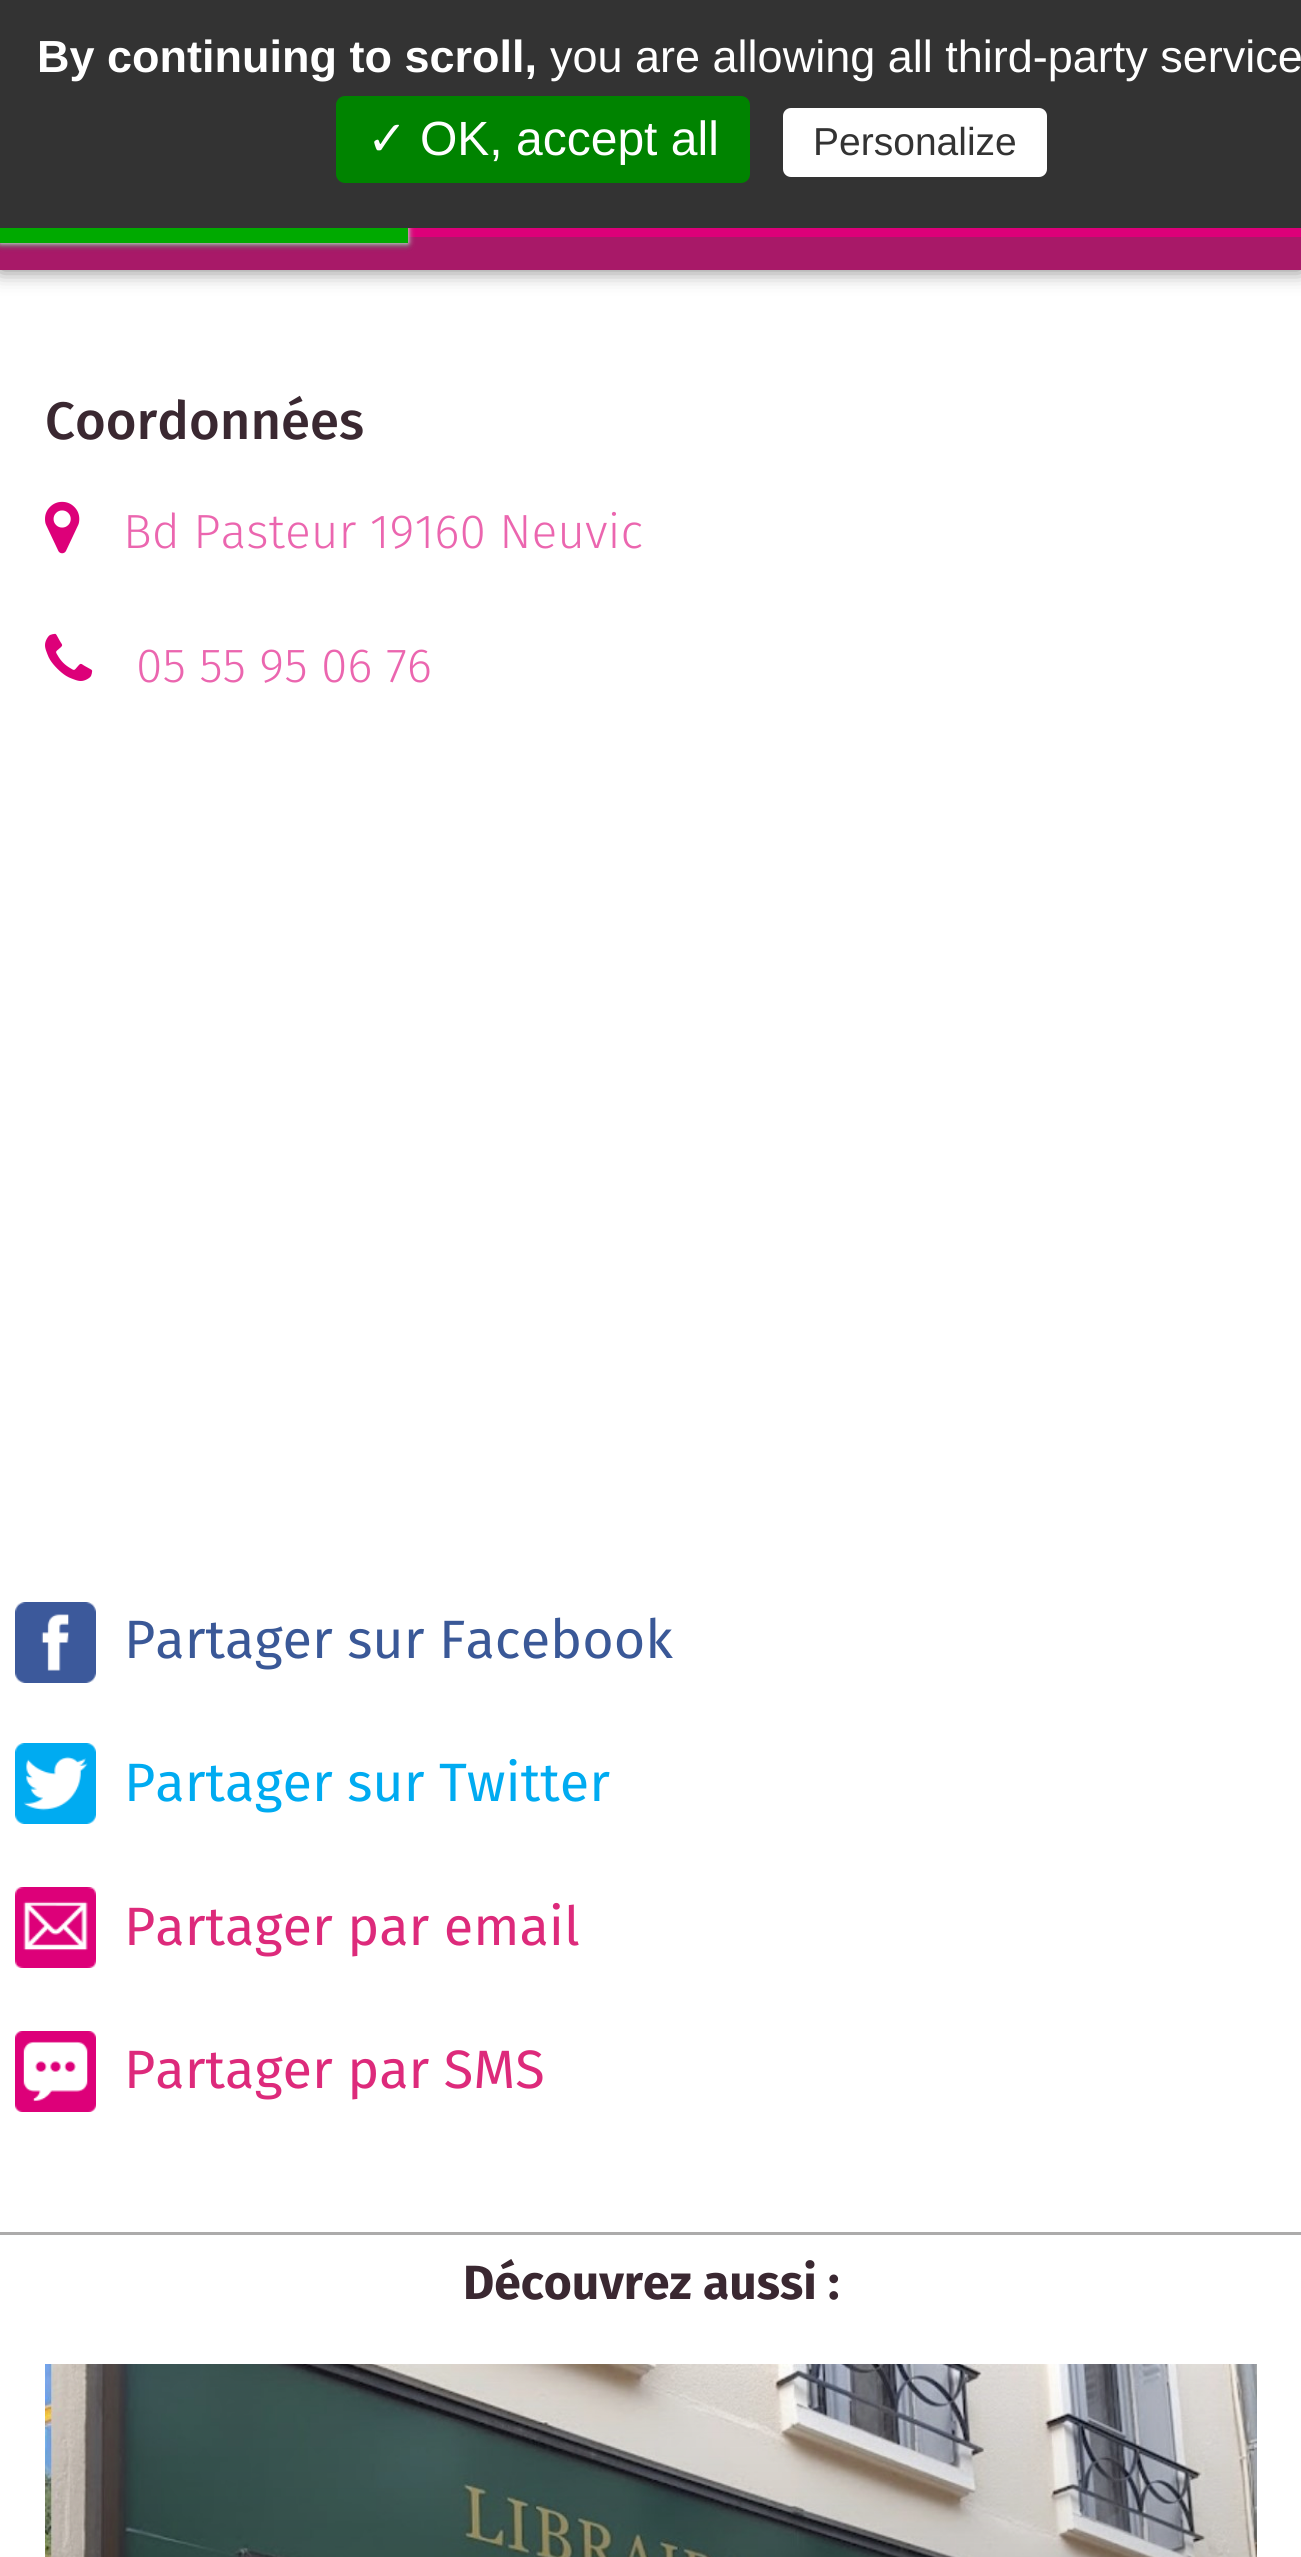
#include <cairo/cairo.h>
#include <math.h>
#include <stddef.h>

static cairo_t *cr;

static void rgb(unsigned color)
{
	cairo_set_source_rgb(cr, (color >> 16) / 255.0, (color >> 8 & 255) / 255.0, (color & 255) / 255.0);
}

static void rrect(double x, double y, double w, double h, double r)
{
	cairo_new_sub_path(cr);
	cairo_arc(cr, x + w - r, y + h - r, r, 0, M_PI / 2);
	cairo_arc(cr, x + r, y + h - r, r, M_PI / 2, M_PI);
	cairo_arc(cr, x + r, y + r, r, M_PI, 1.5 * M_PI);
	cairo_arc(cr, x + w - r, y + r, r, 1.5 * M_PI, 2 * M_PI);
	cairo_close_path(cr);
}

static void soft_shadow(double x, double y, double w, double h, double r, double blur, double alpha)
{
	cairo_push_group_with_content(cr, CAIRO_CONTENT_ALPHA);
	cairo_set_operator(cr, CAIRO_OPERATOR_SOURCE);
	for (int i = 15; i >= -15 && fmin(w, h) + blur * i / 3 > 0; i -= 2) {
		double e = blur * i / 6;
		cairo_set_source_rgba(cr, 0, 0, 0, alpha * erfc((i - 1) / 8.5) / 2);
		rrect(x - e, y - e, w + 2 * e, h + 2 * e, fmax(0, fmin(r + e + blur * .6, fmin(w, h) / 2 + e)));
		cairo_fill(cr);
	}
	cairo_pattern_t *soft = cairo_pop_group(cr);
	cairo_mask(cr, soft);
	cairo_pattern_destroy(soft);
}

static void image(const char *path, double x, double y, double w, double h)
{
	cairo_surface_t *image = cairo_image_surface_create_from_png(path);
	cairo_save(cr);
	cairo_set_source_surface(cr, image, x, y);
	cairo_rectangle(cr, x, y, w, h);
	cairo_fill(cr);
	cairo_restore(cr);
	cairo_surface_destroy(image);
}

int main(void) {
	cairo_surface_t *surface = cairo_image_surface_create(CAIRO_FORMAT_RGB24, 1301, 2557);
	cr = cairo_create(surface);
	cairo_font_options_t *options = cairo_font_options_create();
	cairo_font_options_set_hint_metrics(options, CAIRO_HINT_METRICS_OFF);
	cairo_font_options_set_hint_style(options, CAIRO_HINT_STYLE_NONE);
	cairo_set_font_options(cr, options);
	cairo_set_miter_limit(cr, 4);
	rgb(0xffffff);
	cairo_paint(cr);
	rgb(0x282424);
	soft_shadow(0, 0, 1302, 270, 0, 10.5, 0.62);
	rgb(0xdd0079);
	cairo_rectangle(cr, 408, 228, 893, 9);
	cairo_fill(cr);
	rgb(0xa81968);
	cairo_rectangle(cr, 0, 237, 1301, 33);
	cairo_fill(cr);
	rgb(0x555555);
	soft_shadow(0, 231, 408, 15, 0, 3, 1);
	rgb(0xffffff);
	soft_shadow(0, 228, 408, 15, 0, 3, 1);
	rgb(0x333333);
	cairo_rectangle(cr, 0, 0, 1301, 228);
	cairo_fill(cr);
	rgb(0x008300);
	rrect(336, 96, 414, 87, 9);
	cairo_fill(cr);
	rgb(0xffffff);
	rrect(783, 108, 264, 69, 8);
	cairo_fill(cr);
	rgb(0x00aa00);
	cairo_rectangle(cr, 0, 228, 408, 15);
	cairo_fill(cr);
	image("img/1.png", 45, 501, 35, 53);
	image("img/2.png", 45, 633, 48, 48);
	image("img/3.png", 15, 1602, 81, 81);
	image("img/4.png", 15, 1743, 81, 81);
	image("img/5.png", 15, 1887, 81, 81);
	image("img/6.png", 15, 2031, 81, 81);
	rgb(0xacabab);
	cairo_rectangle(cr, 0, 2232, 1301, 3);
	cairo_fill(cr);
	image("img/7.png", 45, 2364, 1212, 193);
	cairo_select_font_face(cr, "Liberation Sans", CAIRO_FONT_SLANT_NORMAL, CAIRO_FONT_WEIGHT_BOLD);
	cairo_set_font_size(cr, 45);
	rgb(0xffffff);
	cairo_move_to(cr, 37, 72);
	cairo_show_text(cr, "By continuing to scroll,");
	cairo_select_font_face(cr, "Liberation Sans", CAIRO_FONT_SLANT_NORMAL, CAIRO_FONT_WEIGHT_NORMAL);
	cairo_move_to(cr, 550, 72);
	cairo_show_text(cr, "you are allowing all third-party service");
	cairo_select_font_face(cr, "DejaVu Sans", CAIRO_FONT_SLANT_NORMAL, CAIRO_FONT_WEIGHT_NORMAL);
	cairo_set_font_size(cr, 48);
	cairo_move_to(cr, 367, 155);
	cairo_show_text(cr, "✓");
	cairo_select_font_face(cr, "Liberation Sans", CAIRO_FONT_SLANT_NORMAL, CAIRO_FONT_WEIGHT_NORMAL);
	cairo_move_to(cr, 420, 155);
	cairo_show_text(cr, "OK, accept all");
	cairo_set_font_size(cr, 39);
	rgb(0x333333);
	cairo_move_to(cr, 813, 155);
	cairo_show_text(cr, "Personalize");
	cairo_select_font_face(cr, "Fira Sans Medium", CAIRO_FONT_SLANT_NORMAL, CAIRO_FONT_WEIGHT_NORMAL);
	cairo_set_font_size(cr, 52.75);
	rgb(0x3a2831);
	cairo_move_to(cr, 45, 439);
	cairo_show_text(cr, "Coordonnées");
	cairo_select_font_face(cr, "Fira Sans Light", CAIRO_FONT_SLANT_NORMAL, CAIRO_FONT_WEIGHT_NORMAL);
	cairo_set_font_size(cr, 48);
	rgb(0xeb66af);
	cairo_move_to(cr, 123, 548);
	cairo_show_text(cr, "Bd Pasteur 19160 Neuvic");
	cairo_move_to(cr, 136, 682);
	cairo_show_text(cr, "05 55 95 06 76");
	cairo_select_font_face(cr, "Fira Sans", CAIRO_FONT_SLANT_NORMAL, CAIRO_FONT_WEIGHT_NORMAL);
	cairo_set_font_size(cr, 54);
	rgb(0x3a5897);
	cairo_move_to(cr, 124, 1658);
	cairo_show_text(cr, "Partager sur Facebook");
	rgb(0x00abf1);
	cairo_move_to(cr, 124, 1801);
	cairo_show_text(cr, "Partager sur Twitter");
	rgb(0xdd2a7b);
	cairo_move_to(cr, 124, 1945);
	cairo_show_text(cr, "Partager par email");
	cairo_move_to(cr, 124, 2088);
	cairo_show_text(cr, "Partager par SMS");
	cairo_select_font_face(cr, "Fira Sans", CAIRO_FONT_SLANT_NORMAL, CAIRO_FONT_WEIGHT_BOLD);
	cairo_set_font_size(cr, 48);
	rgb(0x3a2831);
	cairo_move_to(cr, 463, 2299);
	cairo_show_text(cr, "Découvrez aussi :");
	cairo_surface_write_to_png(surface, "page.png");
	cairo_font_options_destroy(options);
	cairo_destroy(cr);
	cairo_surface_destroy(surface);
	return 0;
}
